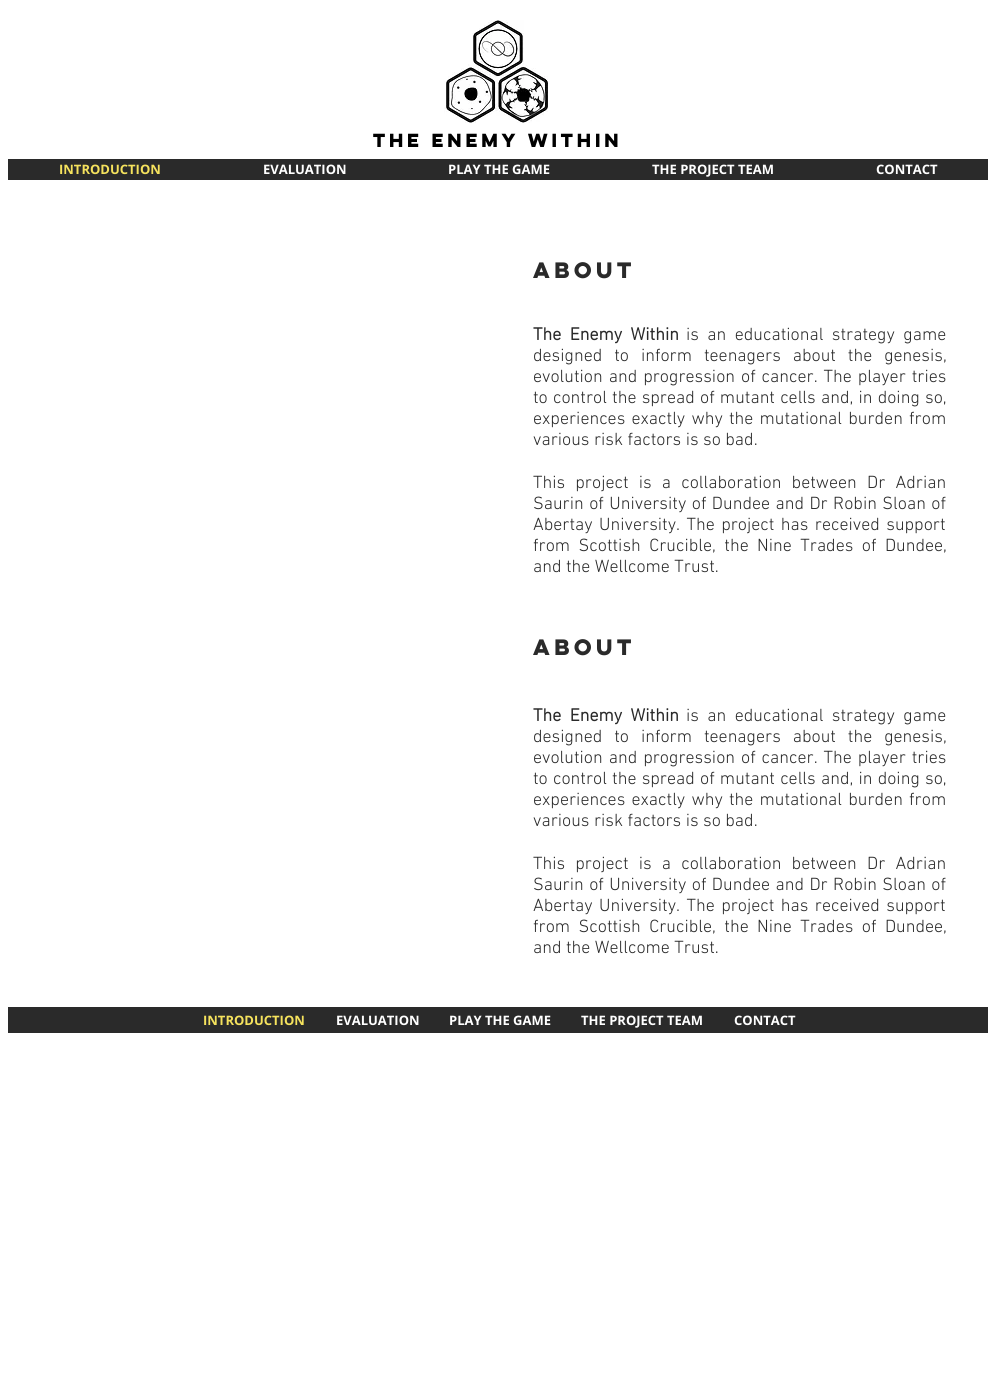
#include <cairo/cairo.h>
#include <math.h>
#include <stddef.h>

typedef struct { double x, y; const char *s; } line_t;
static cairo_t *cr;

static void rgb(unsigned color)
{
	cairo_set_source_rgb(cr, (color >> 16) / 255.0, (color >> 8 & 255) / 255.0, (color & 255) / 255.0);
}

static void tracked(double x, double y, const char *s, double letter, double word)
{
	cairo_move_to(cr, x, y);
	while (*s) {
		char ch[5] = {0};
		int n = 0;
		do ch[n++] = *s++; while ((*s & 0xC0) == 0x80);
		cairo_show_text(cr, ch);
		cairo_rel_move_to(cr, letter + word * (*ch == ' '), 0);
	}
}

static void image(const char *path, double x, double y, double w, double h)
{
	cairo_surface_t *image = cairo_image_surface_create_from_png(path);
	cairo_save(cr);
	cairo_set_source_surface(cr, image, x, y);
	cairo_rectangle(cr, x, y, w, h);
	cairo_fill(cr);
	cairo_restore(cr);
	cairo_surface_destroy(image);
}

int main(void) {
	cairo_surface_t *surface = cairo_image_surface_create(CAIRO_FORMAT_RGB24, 995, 1390);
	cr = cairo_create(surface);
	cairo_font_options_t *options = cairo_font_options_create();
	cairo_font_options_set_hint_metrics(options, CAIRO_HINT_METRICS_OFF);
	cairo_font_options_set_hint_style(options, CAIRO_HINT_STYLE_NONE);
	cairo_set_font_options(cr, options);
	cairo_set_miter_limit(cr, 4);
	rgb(0xffffff);
	cairo_paint(cr);
	image("img/1.png", 444, 20, 104, 103);
	rgb(0x2a2a2a);
	cairo_rectangle(cr, 8, 159, 980, 21);
	cairo_fill(cr);
	cairo_rectangle(cr, 8, 1007, 980, 26);
	cairo_fill(cr);
	cairo_select_font_face(cr, "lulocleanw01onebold", CAIRO_FONT_SLANT_NORMAL, CAIRO_FONT_WEIGHT_BOLD);
	cairo_set_font_size(cr, 17);
	rgb(0x000000);
	cairo_move_to(cr, 373, 147);
	cairo_show_text(cr, "The Enemy Within");
	cairo_select_font_face(cr, "Open Sans", CAIRO_FONT_SLANT_NORMAL, CAIRO_FONT_WEIGHT_BOLD);
	cairo_set_font_size(cr, 13);
	rgb(0xf5e25d);
	cairo_move_to(cr, 59, 174);
	cairo_show_text(cr, "INTRODUCTION");
	rgb(0xffffff);
	{
		static const line_t items[] = {
			{263, 174, "EVALUATION"},
			{448, 174, "PLAY THE GAME"},
			{652, 174, "THE PROJECT TEAM"},
			{876, 174, "CONTACT"},
		};
		for (size_t i = 0; i < sizeof items / sizeof *items; i++) {
			cairo_move_to(cr, items[i].x, items[i].y);
			cairo_show_text(cr, items[i].s);
		}
	}
	cairo_select_font_face(cr, "lulocleanw01onebold", CAIRO_FONT_SLANT_NORMAL, CAIRO_FONT_WEIGHT_BOLD);
	cairo_set_font_size(cr, 20);
	rgb(0x2a2a2a);
	cairo_move_to(cr, 533, 278);
	cairo_show_text(cr, "ABOUT");
	cairo_select_font_face(cr, "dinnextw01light", CAIRO_FONT_SLANT_NORMAL, CAIRO_FONT_WEIGHT_BOLD);
	cairo_set_font_size(cr, 18);
	tracked(533, 340, "The Enemy Within", 0, 4);
	cairo_select_font_face(cr, "dinnextw01light Light", CAIRO_FONT_SLANT_NORMAL, CAIRO_FONT_WEIGHT_NORMAL);
	tracked(686, 340, "is an educational strategy game", 0, 4);
	tracked(533, 361, "designed to inform teenagers about the genesis,", 0, 7.5);
	tracked(533, 382, "evolution and progression of cancer. The player tries", 0, 1.5);
	tracked(533, 403, "to control the spread of mutant cells and, in doing so,", 0, 0.75);
	tracked(533, 424, "experiences exactly why the mutational burden from", 0, 1.75);
	cairo_move_to(cr, 533, 445);
	cairo_show_text(cr, "various risk factors is so bad.");
	tracked(533, 488, "This project is a collaboration between Dr Adrian", 0, 5.75);
	tracked(533, 509, "Saurin of University of Dundee and Dr Robin Sloan of", 0, 1);
	tracked(533, 530, "Abertay University. The project has received support", 0, 2);
	tracked(533, 551, "from Scottish Crucible, the Nine Trades of Dundee,", 0, 4);
	cairo_move_to(cr, 533, 572);
	cairo_show_text(cr, "and the Wellcome Trust.");
	cairo_select_font_face(cr, "lulocleanw01onebold", CAIRO_FONT_SLANT_NORMAL, CAIRO_FONT_WEIGHT_BOLD);
	cairo_set_font_size(cr, 20);
	cairo_move_to(cr, 533, 655);
	cairo_show_text(cr, "ABOUT");
	cairo_select_font_face(cr, "dinnextw01light", CAIRO_FONT_SLANT_NORMAL, CAIRO_FONT_WEIGHT_BOLD);
	cairo_set_font_size(cr, 18);
	tracked(533, 721, "The Enemy Within", 0, 4);
	cairo_select_font_face(cr, "dinnextw01light Light", CAIRO_FONT_SLANT_NORMAL, CAIRO_FONT_WEIGHT_NORMAL);
	tracked(686, 721, "is an educational strategy game", 0, 4);
	tracked(533, 742, "designed to inform teenagers about the genesis,", 0, 7.5);
	tracked(533, 763, "evolution and progression of cancer. The player tries", 0, 1.5);
	tracked(533, 784, "to control the spread of mutant cells and, in doing so,", 0, 0.75);
	tracked(533, 805, "experiences exactly why the mutational burden from", 0, 1.75);
	cairo_move_to(cr, 533, 826);
	cairo_show_text(cr, "various risk factors is so bad.");
	tracked(533, 869, "This project is a collaboration between Dr Adrian", 0, 5.75);
	tracked(533, 890, "Saurin of University of Dundee and Dr Robin Sloan of", 0, 1);
	tracked(533, 911, "Abertay University. The project has received support", 0, 2);
	tracked(533, 932, "from Scottish Crucible, the Nine Trades of Dundee,", 0, 4);
	cairo_move_to(cr, 533, 953);
	cairo_show_text(cr, "and the Wellcome Trust.");
	cairo_select_font_face(cr, "Open Sans", CAIRO_FONT_SLANT_NORMAL, CAIRO_FONT_WEIGHT_BOLD);
	cairo_set_font_size(cr, 13);
	rgb(0xf5e25d);
	cairo_move_to(cr, 203, 1025);
	cairo_show_text(cr, "INTRODUCTION");
	rgb(0xffffff);
	{
		static const line_t items[] = {
			{336, 1025, "EVALUATION"},
			{449, 1025, "PLAY THE GAME"},
			{581, 1025, "THE PROJECT TEAM"},
			{734, 1025, "CONTACT"},
		};
		for (size_t i = 0; i < sizeof items / sizeof *items; i++) {
			cairo_move_to(cr, items[i].x, items[i].y);
			cairo_show_text(cr, items[i].s);
		}
	}
	cairo_surface_write_to_png(surface, "page.png");
	cairo_font_options_destroy(options);
	cairo_destroy(cr);
	cairo_surface_destroy(surface);
	return 0;
}
